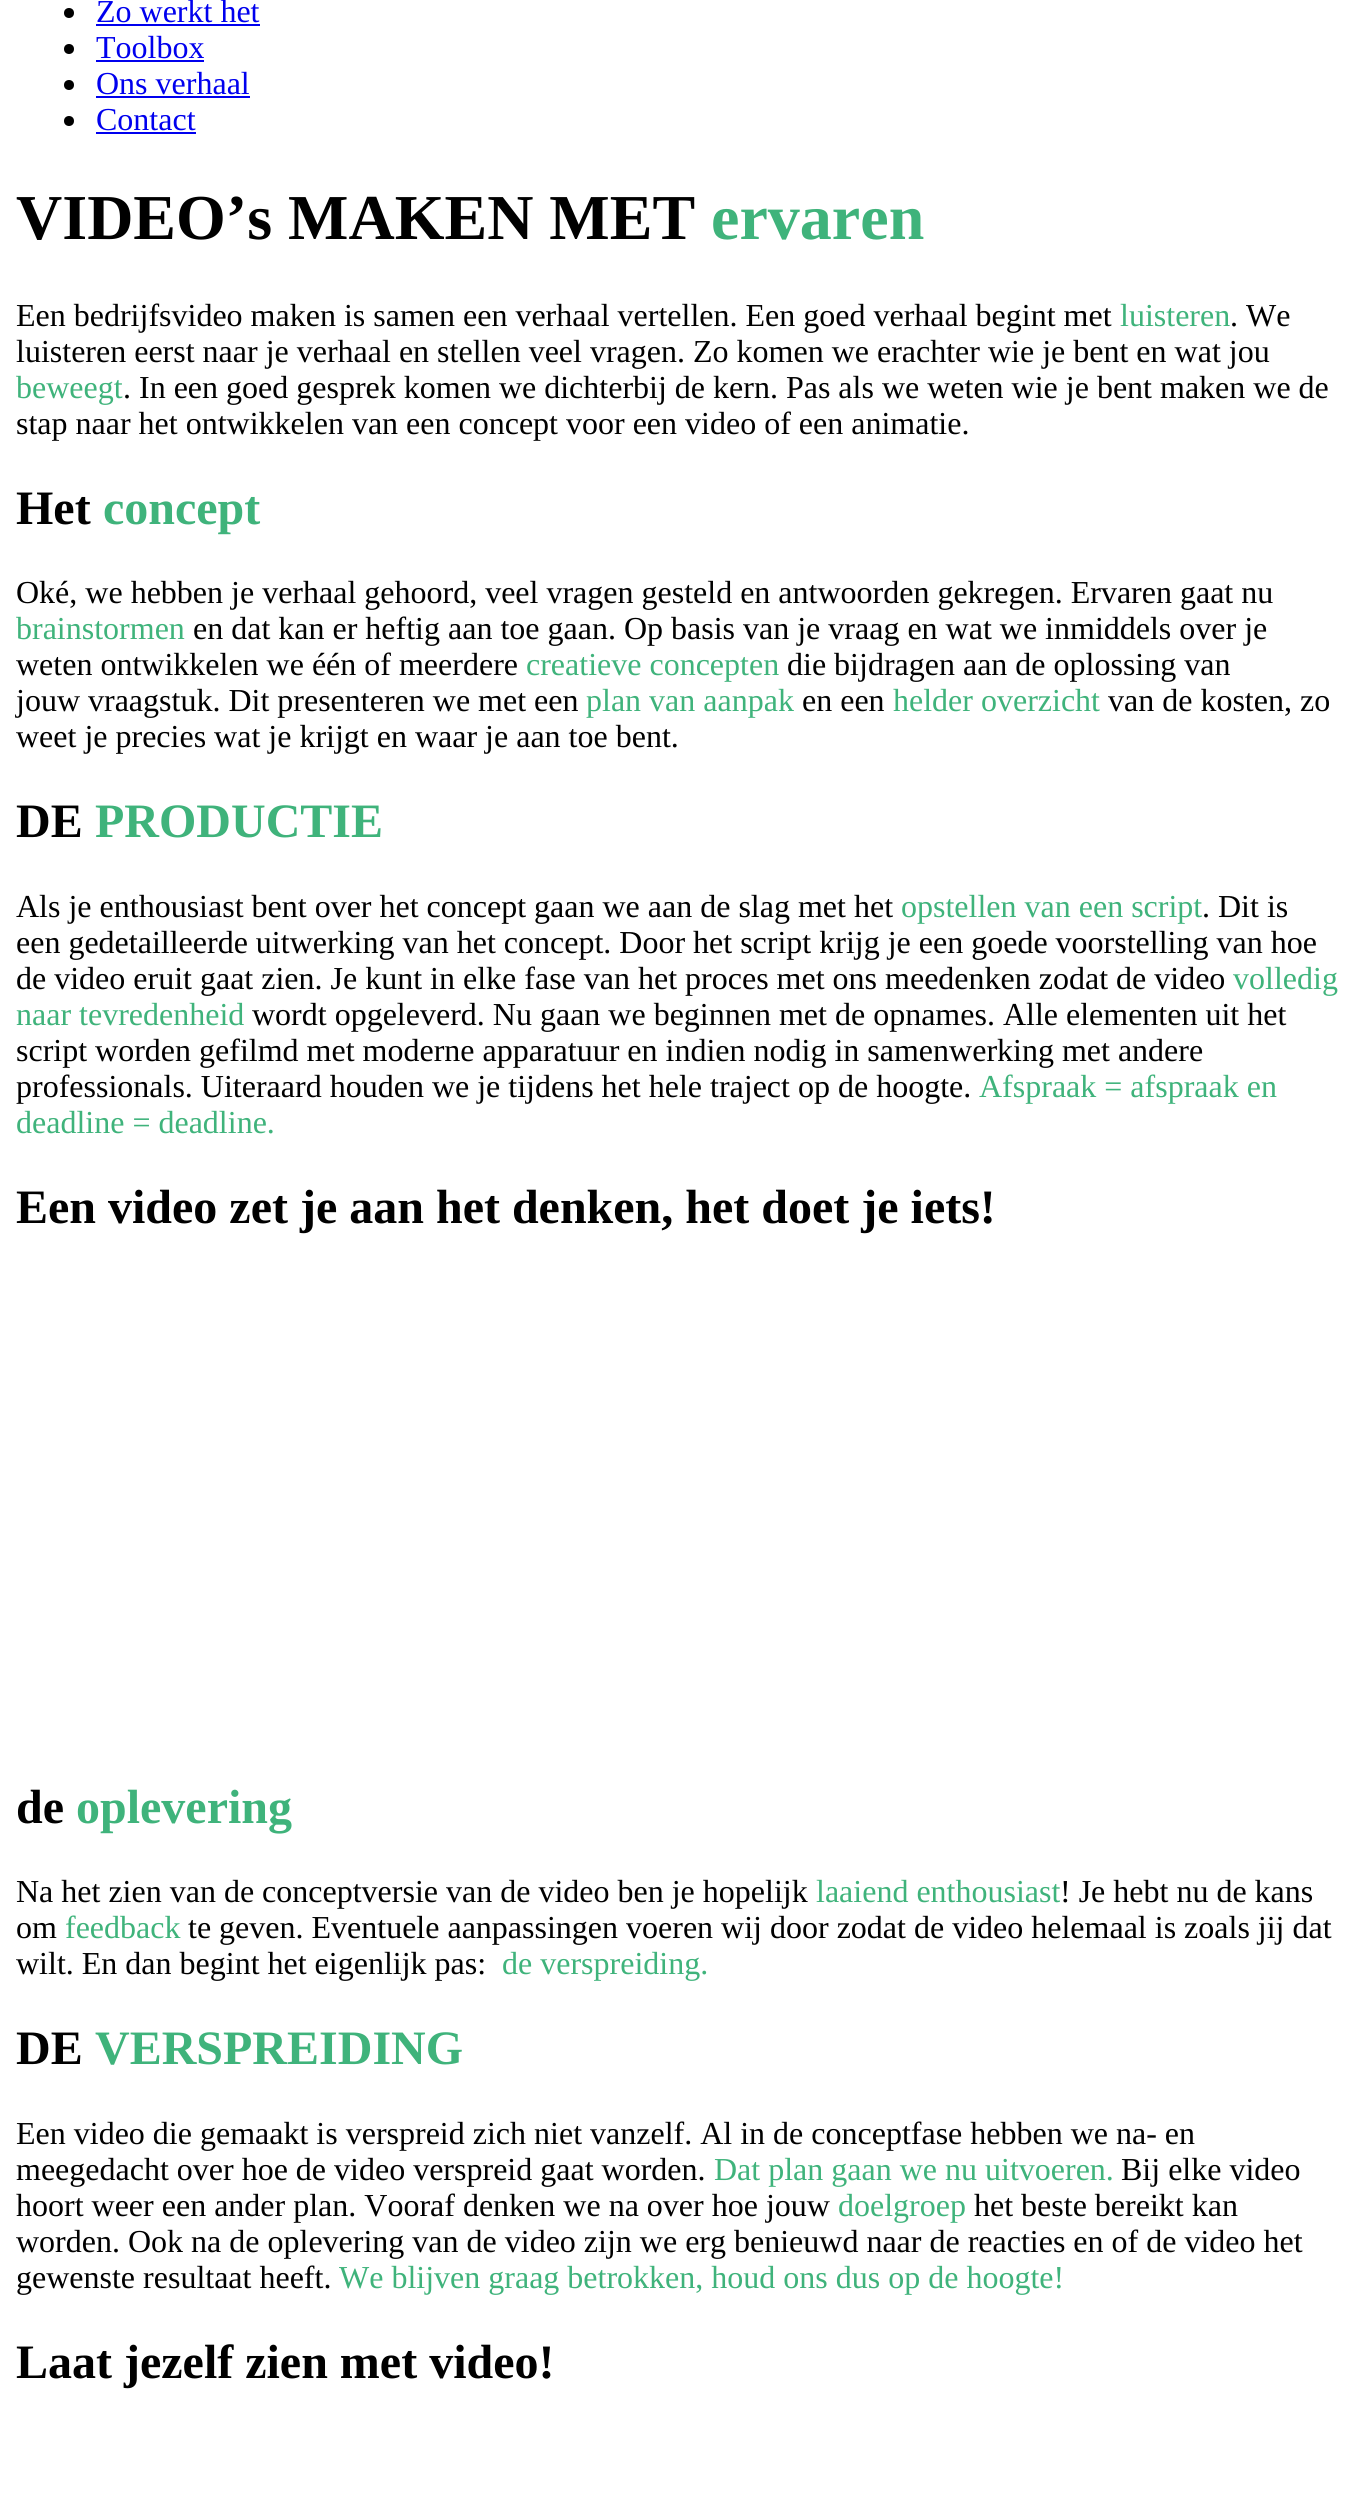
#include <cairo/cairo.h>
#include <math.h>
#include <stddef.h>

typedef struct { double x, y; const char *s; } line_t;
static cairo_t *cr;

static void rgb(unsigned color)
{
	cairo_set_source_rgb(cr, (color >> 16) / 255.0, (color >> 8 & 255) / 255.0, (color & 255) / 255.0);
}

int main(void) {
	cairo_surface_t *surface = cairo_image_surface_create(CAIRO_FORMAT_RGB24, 1356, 2508);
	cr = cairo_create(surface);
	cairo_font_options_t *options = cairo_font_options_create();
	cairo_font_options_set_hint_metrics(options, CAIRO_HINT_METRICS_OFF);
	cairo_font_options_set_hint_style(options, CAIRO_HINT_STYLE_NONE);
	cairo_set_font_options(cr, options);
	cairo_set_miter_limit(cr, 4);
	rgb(0xffffff);
	cairo_paint(cr);
	rgb(0x000000);
	cairo_arc(cr, 69, 13, 5, 0, 2 * M_PI);
	cairo_fill(cr);
	rgb(0x0000ee);
	cairo_rectangle(cr, 96, 24, 164, 2);
	cairo_fill(cr);
	rgb(0x000000);
	cairo_arc(cr, 69, 49, 5, 0, 2 * M_PI);
	cairo_fill(cr);
	rgb(0x0000ee);
	cairo_rectangle(cr, 96, 60, 108, 2);
	cairo_fill(cr);
	rgb(0x000000);
	cairo_arc(cr, 69, 85, 5, 0, 2 * M_PI);
	cairo_fill(cr);
	rgb(0x0000ee);
	cairo_rectangle(cr, 96, 96, 154, 2);
	cairo_fill(cr);
	rgb(0x000000);
	cairo_arc(cr, 69, 121, 5, 0, 2 * M_PI);
	cairo_fill(cr);
	rgb(0x0000ee);
	cairo_rectangle(cr, 96, 132, 100, 2);
	cairo_fill(cr);
	cairo_select_font_face(cr, "Liberation Serif", CAIRO_FONT_SLANT_NORMAL, CAIRO_FONT_WEIGHT_NORMAL);
	cairo_set_font_size(cr, 32);
	{
		static const line_t items[] = {
			{96, 22, "Zo werkt het"},
			{96, 58, "Toolbox"},
			{96, 94, "Ons verhaal"},
			{96, 130, "Contact"},
		};
		for (size_t i = 0; i < sizeof items / sizeof *items; i++) {
			cairo_move_to(cr, items[i].x, items[i].y);
			cairo_show_text(cr, items[i].s);
		}
	}
	cairo_select_font_face(cr, "Liberation Serif", CAIRO_FONT_SLANT_NORMAL, CAIRO_FONT_WEIGHT_BOLD);
	cairo_set_font_size(cr, 64);
	rgb(0x000000);
	cairo_move_to(cr, 16, 239);
	cairo_show_text(cr, "VIDEO’s MAKEN MET");
	rgb(0x3fb37b);
	cairo_move_to(cr, 711, 239);
	cairo_show_text(cr, "ervaren");
	cairo_select_font_face(cr, "Liberation Serif", CAIRO_FONT_SLANT_NORMAL, CAIRO_FONT_WEIGHT_NORMAL);
	cairo_set_font_size(cr, 32);
	rgb(0x000000);
	cairo_move_to(cr, 16, 326);
	cairo_show_text(cr, "Een bedrijfsvideo maken is samen een verhaal vertellen. Een goed verhaal begint met");
	rgb(0x3fb37b);
	cairo_move_to(cr, 1120, 326);
	cairo_show_text(cr, "luisteren");
	rgb(0x000000);
	cairo_move_to(cr, 1230, 326);
	cairo_show_text(cr, ". We");
	cairo_move_to(cr, 16, 362);
	cairo_show_text(cr, "luisteren eerst naar je verhaal en stellen veel vragen. Zo komen we erachter wie je bent en wat jou");
	rgb(0x3fb37b);
	cairo_move_to(cr, 16, 398);
	cairo_show_text(cr, "beweegt");
	rgb(0x000000);
	cairo_move_to(cr, 123, 398);
	cairo_show_text(cr, ". In een goed gesprek komen we dichterbij de kern. Pas als we weten wie je bent maken we de");
	cairo_move_to(cr, 16, 434);
	cairo_show_text(cr, "stap naar het ontwikkelen van een concept voor een video of een animatie.");
	cairo_select_font_face(cr, "Liberation Serif", CAIRO_FONT_SLANT_NORMAL, CAIRO_FONT_WEIGHT_BOLD);
	cairo_set_font_size(cr, 48);
	cairo_move_to(cr, 16, 524);
	cairo_show_text(cr, "Het");
	rgb(0x3fb37b);
	cairo_move_to(cr, 103, 524);
	cairo_show_text(cr, "concept");
	cairo_select_font_face(cr, "Liberation Serif", CAIRO_FONT_SLANT_NORMAL, CAIRO_FONT_WEIGHT_NORMAL);
	cairo_set_font_size(cr, 32);
	rgb(0x000000);
	cairo_move_to(cr, 16, 603);
	cairo_show_text(cr, "Oké, we hebben je verhaal gehoord, veel vragen gesteld en antwoorden gekregen. Ervaren gaat nu");
	rgb(0x3fb37b);
	cairo_move_to(cr, 16, 639);
	cairo_show_text(cr, "brainstormen");
	rgb(0x000000);
	cairo_move_to(cr, 193, 639);
	cairo_show_text(cr, "en dat kan er heftig aan toe gaan. Op basis van je vraag en wat we inmiddels over je");
	cairo_move_to(cr, 16, 675);
	cairo_show_text(cr, "weten ontwikkelen we één of meerdere");
	rgb(0x3fb37b);
	cairo_move_to(cr, 526, 675);
	cairo_show_text(cr, "creatieve concepten");
	rgb(0x000000);
	cairo_move_to(cr, 787, 675);
	cairo_show_text(cr, "die bijdragen aan de oplossing van");
	cairo_move_to(cr, 16, 711);
	cairo_show_text(cr, "jouw vraagstuk. Dit presenteren we met een");
	rgb(0x3fb37b);
	cairo_move_to(cr, 586, 711);
	cairo_show_text(cr, "plan van aanpak");
	rgb(0x000000);
	cairo_move_to(cr, 802, 711);
	cairo_show_text(cr, "en een");
	rgb(0x3fb37b);
	cairo_move_to(cr, 893, 711);
	cairo_show_text(cr, "helder overzicht");
	rgb(0x000000);
	cairo_move_to(cr, 1108, 711);
	cairo_show_text(cr, "van de kosten, zo");
	cairo_move_to(cr, 16, 747);
	cairo_show_text(cr, "weet je precies wat je krijgt en waar je aan toe bent.");
	cairo_select_font_face(cr, "Liberation Serif", CAIRO_FONT_SLANT_NORMAL, CAIRO_FONT_WEIGHT_BOLD);
	cairo_set_font_size(cr, 48);
	cairo_move_to(cr, 16, 837);
	cairo_show_text(cr, "DE");
	rgb(0x3fb37b);
	cairo_move_to(cr, 95, 837);
	cairo_show_text(cr, "PRODUCTIE");
	cairo_select_font_face(cr, "Liberation Serif", CAIRO_FONT_SLANT_NORMAL, CAIRO_FONT_WEIGHT_NORMAL);
	cairo_set_font_size(cr, 32);
	rgb(0x000000);
	cairo_move_to(cr, 16, 917);
	cairo_show_text(cr, "Als je enthousiast bent over het concept gaan we aan de slag met het");
	rgb(0x3fb37b);
	cairo_move_to(cr, 901, 917);
	cairo_show_text(cr, "opstellen van een script");
	rgb(0x000000);
	{
		static const line_t items[] = {
			{1202, 917, ". Dit is"},
			{16, 953, "een gedetailleerde uitwerking van het concept. Door het script krijg je een goede voorstelling van hoe"},
			{16, 989, "de video eruit gaat zien. Je kunt in elke fase van het proces met ons meedenken zodat de video"},
		};
		for (size_t i = 0; i < sizeof items / sizeof *items; i++) {
			cairo_move_to(cr, items[i].x, items[i].y);
			cairo_show_text(cr, items[i].s);
		}
	}
	rgb(0x3fb37b);
	cairo_move_to(cr, 1233, 989);
	cairo_show_text(cr, "volledig");
	cairo_move_to(cr, 16, 1025);
	cairo_show_text(cr, "naar tevredenheid");
	rgb(0x000000);
	{
		static const line_t items[] = {
			{252, 1025, "wordt opgeleverd. Nu gaan we beginnen met de opnames. Alle elementen uit het"},
			{16, 1061, "script worden gefilmd met moderne apparatuur en indien nodig in samenwerking met andere"},
			{16, 1097, "professionals. Uiteraard houden we je tijdens het hele traject op de hoogte."},
		};
		for (size_t i = 0; i < sizeof items / sizeof *items; i++) {
			cairo_move_to(cr, items[i].x, items[i].y);
			cairo_show_text(cr, items[i].s);
		}
	}
	rgb(0x3fb37b);
	cairo_move_to(cr, 979, 1097);
	cairo_show_text(cr, "Afspraak = afspraak en");
	cairo_move_to(cr, 16, 1133);
	cairo_show_text(cr, "deadline = deadline.");
	cairo_select_font_face(cr, "Liberation Serif", CAIRO_FONT_SLANT_NORMAL, CAIRO_FONT_WEIGHT_BOLD);
	cairo_set_font_size(cr, 48);
	rgb(0x000000);
	cairo_move_to(cr, 16, 1223);
	cairo_show_text(cr, "Een video zet je aan het denken, het doet je iets!");
	cairo_move_to(cr, 16, 1823);
	cairo_show_text(cr, "de");
	rgb(0x3fb37b);
	cairo_move_to(cr, 76, 1823);
	cairo_show_text(cr, "oplevering");
	cairo_select_font_face(cr, "Liberation Serif", CAIRO_FONT_SLANT_NORMAL, CAIRO_FONT_WEIGHT_NORMAL);
	cairo_set_font_size(cr, 32);
	rgb(0x000000);
	cairo_move_to(cr, 16, 1902);
	cairo_show_text(cr, "Na het zien van de conceptversie van de video ben je hopelijk");
	rgb(0x3fb37b);
	cairo_move_to(cr, 816, 1902);
	cairo_show_text(cr, "laaiend enthousiast");
	rgb(0x000000);
	cairo_move_to(cr, 1060, 1902);
	cairo_show_text(cr, "! Je hebt nu de kans");
	cairo_move_to(cr, 16, 1938);
	cairo_show_text(cr, "om");
	rgb(0x3fb37b);
	cairo_move_to(cr, 65, 1938);
	cairo_show_text(cr, "feedback");
	rgb(0x000000);
	cairo_move_to(cr, 188, 1938);
	cairo_show_text(cr, "te geven. Eventuele aanpassingen voeren wij door zodat de video helemaal is zoals jij dat");
	cairo_move_to(cr, 16, 1974);
	cairo_show_text(cr, "wilt. En dan begint het eigenlijk pas:");
	rgb(0x3fb37b);
	cairo_move_to(cr, 502, 1974);
	cairo_show_text(cr, "de verspreiding.");
	cairo_select_font_face(cr, "Liberation Serif", CAIRO_FONT_SLANT_NORMAL, CAIRO_FONT_WEIGHT_BOLD);
	cairo_set_font_size(cr, 48);
	rgb(0x000000);
	cairo_move_to(cr, 16, 2064);
	cairo_show_text(cr, "DE");
	rgb(0x3fb37b);
	cairo_move_to(cr, 95, 2064);
	cairo_show_text(cr, "VERSPREIDING");
	cairo_select_font_face(cr, "Liberation Serif", CAIRO_FONT_SLANT_NORMAL, CAIRO_FONT_WEIGHT_NORMAL);
	cairo_set_font_size(cr, 32);
	rgb(0x000000);
	cairo_move_to(cr, 16, 2144);
	cairo_show_text(cr, "Een video die gemaakt is verspreid zich niet vanzelf. Al in de conceptfase hebben we na- en");
	cairo_move_to(cr, 16, 2180);
	cairo_show_text(cr, "meegedacht over hoe de video verspreid gaat worden.");
	rgb(0x3fb37b);
	cairo_move_to(cr, 714, 2180);
	cairo_show_text(cr, "Dat plan gaan we nu uitvoeren.");
	rgb(0x000000);
	cairo_move_to(cr, 1121, 2180);
	cairo_show_text(cr, "Bij elke video");
	cairo_move_to(cr, 16, 2216);
	cairo_show_text(cr, "hoort weer een ander plan. Vooraf denken we na over hoe jouw");
	rgb(0x3fb37b);
	cairo_move_to(cr, 838, 2216);
	cairo_show_text(cr, "doelgroep");
	rgb(0x000000);
	{
		static const line_t items[] = {
			{974, 2216, "het beste bereikt kan"},
			{16, 2252, "worden. Ook na de oplevering van de video zijn we erg benieuwd naar de reacties en of de video het"},
			{16, 2288, "gewenste resultaat heeft."},
		};
		for (size_t i = 0; i < sizeof items / sizeof *items; i++) {
			cairo_move_to(cr, items[i].x, items[i].y);
			cairo_show_text(cr, items[i].s);
		}
	}
	rgb(0x3fb37b);
	cairo_move_to(cr, 339, 2288);
	cairo_show_text(cr, "We blijven graag betrokken, houd ons dus op de hoogte!");
	cairo_select_font_face(cr, "Liberation Serif", CAIRO_FONT_SLANT_NORMAL, CAIRO_FONT_WEIGHT_BOLD);
	cairo_set_font_size(cr, 48);
	rgb(0x000000);
	cairo_move_to(cr, 16, 2378);
	cairo_show_text(cr, "Laat jezelf zien met video!");
	cairo_surface_write_to_png(surface, "page.png");
	cairo_font_options_destroy(options);
	cairo_destroy(cr);
	cairo_surface_destroy(surface);
	return 0;
}
